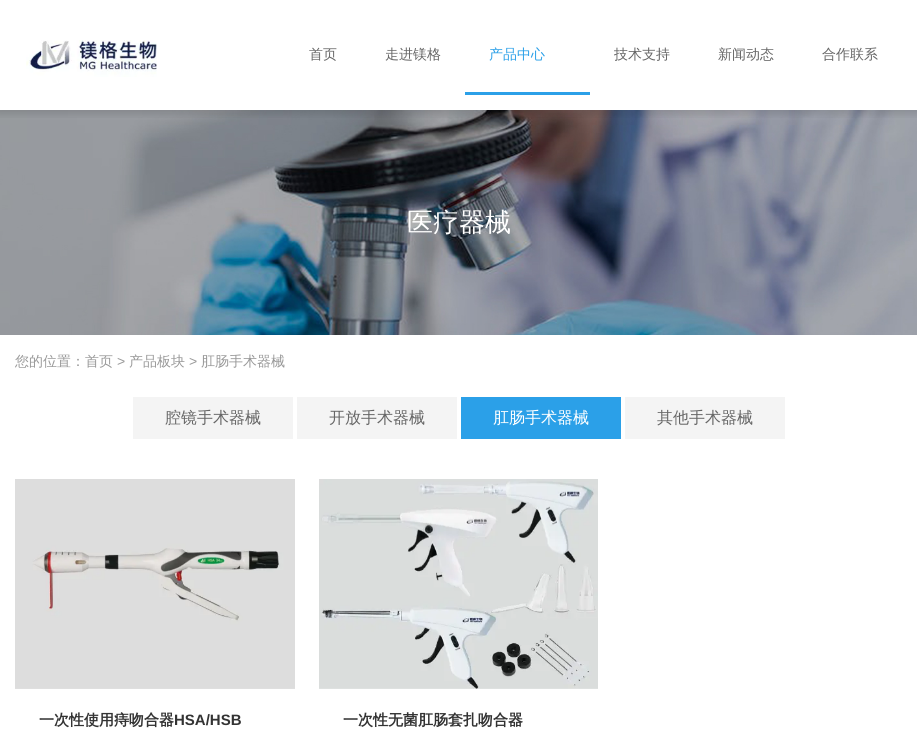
#include <cairo/cairo.h>
#include <math.h>
#include <stddef.h>

typedef struct { double x, y; const char *s; } line_t;
typedef struct { double x, y, w, h; unsigned color; } box_t;
static cairo_t *cr;

static void rgb(unsigned color)
{
	cairo_set_source_rgb(cr, (color >> 16) / 255.0, (color >> 8 & 255) / 255.0, (color & 255) / 255.0);
}

static void rrect(double x, double y, double w, double h, double r)
{
	cairo_new_sub_path(cr);
	cairo_arc(cr, x + w - r, y + h - r, r, 0, M_PI / 2);
	cairo_arc(cr, x + r, y + h - r, r, M_PI / 2, M_PI);
	cairo_arc(cr, x + r, y + r, r, M_PI, 1.5 * M_PI);
	cairo_arc(cr, x + w - r, y + r, r, 1.5 * M_PI, 2 * M_PI);
	cairo_close_path(cr);
}

static void soft_shadow(double x, double y, double w, double h, double r, double blur, double alpha)
{
	cairo_push_group_with_content(cr, CAIRO_CONTENT_ALPHA);
	cairo_set_operator(cr, CAIRO_OPERATOR_SOURCE);
	for (int i = 15; i >= -15 && fmin(w, h) + blur * i / 3 > 0; i -= 2) {
		double e = blur * i / 6;
		cairo_set_source_rgba(cr, 0, 0, 0, alpha * erfc((i - 1) / 8.5) / 2);
		rrect(x - e, y - e, w + 2 * e, h + 2 * e, fmax(0, fmin(r + e + blur * .6, fmin(w, h) / 2 + e)));
		cairo_fill(cr);
	}
	cairo_pattern_t *soft = cairo_pop_group(cr);
	cairo_mask(cr, soft);
	cairo_pattern_destroy(soft);
}

static void image(const char *path, double x, double y, double w, double h)
{
	cairo_surface_t *image = cairo_image_surface_create_from_png(path);
	cairo_save(cr);
	cairo_set_source_surface(cr, image, x, y);
	cairo_rectangle(cr, x, y, w, h);
	cairo_fill(cr);
	cairo_restore(cr);
	cairo_surface_destroy(image);
}

int main(void) {
	cairo_surface_t *surface = cairo_image_surface_create(CAIRO_FORMAT_RGB24, 917, 736);
	cr = cairo_create(surface);
	cairo_font_options_t *options = cairo_font_options_create();
	cairo_font_options_set_hint_metrics(options, CAIRO_HINT_METRICS_OFF);
	cairo_font_options_set_hint_style(options, CAIRO_HINT_STYLE_NONE);
	cairo_set_font_options(cr, options);
	cairo_set_miter_limit(cr, 4);
	rgb(0xffffff);
	cairo_paint(cr);
	image("img/2.png", 0, 110, 917, 225);
	cairo_save(cr);
	cairo_rectangle(cr, 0, 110, 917, 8);
	cairo_clip(cr);
	rgb(0x000000);
	soft_shadow(-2, 0, 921, 114, 0, 4, 0.13);
	cairo_restore(cr);
	image("img/1.png", 26, 40, 131, 37);
	{
		static const box_t items[] = {
			{465, 92, 125, 3, 0x2ba0e8},
			{133, 397, 160, 42, 0xf4f4f4},
			{297, 397, 160, 42, 0xf4f4f4},
			{461, 397, 160, 42, 0x2ba0e8},
			{625, 397, 160, 42, 0xf4f4f4},
		};
		for (size_t i = 0; i < sizeof items / sizeof *items; i++) {
			rgb(items[i].color);
			cairo_rectangle(cr, items[i].x, items[i].y, items[i].w, items[i].h);
			cairo_fill(cr);
		}
	}
	image("img/3.png", 15, 479, 280, 210);
	image("img/4.png", 319, 479, 279, 210);
	cairo_select_font_face(cr, "WenQuanYi Zen Hei Medium", CAIRO_FONT_SLANT_NORMAL, CAIRO_FONT_WEIGHT_NORMAL);
	cairo_set_font_size(cr, 14);
	rgb(0x666666);
	cairo_move_to(cr, 309, 59);
	cairo_show_text(cr, "首页");
	cairo_move_to(cr, 385, 59);
	cairo_show_text(cr, "走进镁格");
	rgb(0x2ba0e8);
	cairo_move_to(cr, 489, 59);
	cairo_show_text(cr, "产品中心");
	rgb(0x666666);
	{
		static const line_t items[] = {
			{614, 59, "技术支持"},
			{718, 59, "新闻动态"},
			{822, 59, "合作联系"},
		};
		for (size_t i = 0; i < sizeof items / sizeof *items; i++) {
			cairo_move_to(cr, items[i].x, items[i].y);
			cairo_show_text(cr, items[i].s);
		}
	}
	cairo_set_font_size(cr, 26);
	rgb(0xffffff);
	cairo_move_to(cr, 407, 231);
	cairo_show_text(cr, "医疗器械");
	cairo_set_font_size(cr, 14);
	rgb(0x999999);
	cairo_move_to(cr, 15, 366);
	cairo_show_text(cr, "您的位置：首页");
	cairo_select_font_face(cr, "Liberation Sans", CAIRO_FONT_SLANT_NORMAL, CAIRO_FONT_WEIGHT_NORMAL);
	cairo_move_to(cr, 117, 366);
	cairo_show_text(cr, ">");
	cairo_select_font_face(cr, "WenQuanYi Zen Hei Medium", CAIRO_FONT_SLANT_NORMAL, CAIRO_FONT_WEIGHT_NORMAL);
	cairo_move_to(cr, 129, 366);
	cairo_show_text(cr, "产品板块");
	cairo_select_font_face(cr, "Liberation Sans", CAIRO_FONT_SLANT_NORMAL, CAIRO_FONT_WEIGHT_NORMAL);
	cairo_move_to(cr, 189, 366);
	cairo_show_text(cr, ">");
	cairo_select_font_face(cr, "WenQuanYi Zen Hei Medium", CAIRO_FONT_SLANT_NORMAL, CAIRO_FONT_WEIGHT_NORMAL);
	cairo_move_to(cr, 201, 366);
	cairo_show_text(cr, "肛肠手术器械");
	cairo_set_font_size(cr, 16);
	rgb(0x666666);
	cairo_move_to(cr, 165, 423);
	cairo_show_text(cr, "腔镜手术器械");
	cairo_move_to(cr, 329, 423);
	cairo_show_text(cr, "开放手术器械");
	rgb(0xffffff);
	cairo_move_to(cr, 493, 423);
	cairo_show_text(cr, "肛肠手术器械");
	rgb(0x666666);
	cairo_move_to(cr, 657, 423);
	cairo_show_text(cr, "其他手术器械");
	cairo_select_font_face(cr, "WenQuanYi Zen Hei", CAIRO_FONT_SLANT_NORMAL, CAIRO_FONT_WEIGHT_BOLD);
	cairo_set_font_size(cr, 15);
	rgb(0x333333);
	cairo_move_to(cr, 39, 725);
	cairo_show_text(cr, "一次性使用痔吻合器");
	cairo_select_font_face(cr, "Liberation Sans", CAIRO_FONT_SLANT_NORMAL, CAIRO_FONT_WEIGHT_BOLD);
	cairo_move_to(cr, 174, 725);
	cairo_show_text(cr, "HSA/HSB");
	cairo_select_font_face(cr, "WenQuanYi Zen Hei", CAIRO_FONT_SLANT_NORMAL, CAIRO_FONT_WEIGHT_BOLD);
	cairo_move_to(cr, 343, 725);
	cairo_show_text(cr, "一次性无菌肛肠套扎吻合器");
	cairo_surface_write_to_png(surface, "page.png");
	cairo_font_options_destroy(options);
	cairo_destroy(cr);
	cairo_surface_destroy(surface);
	return 0;
}
